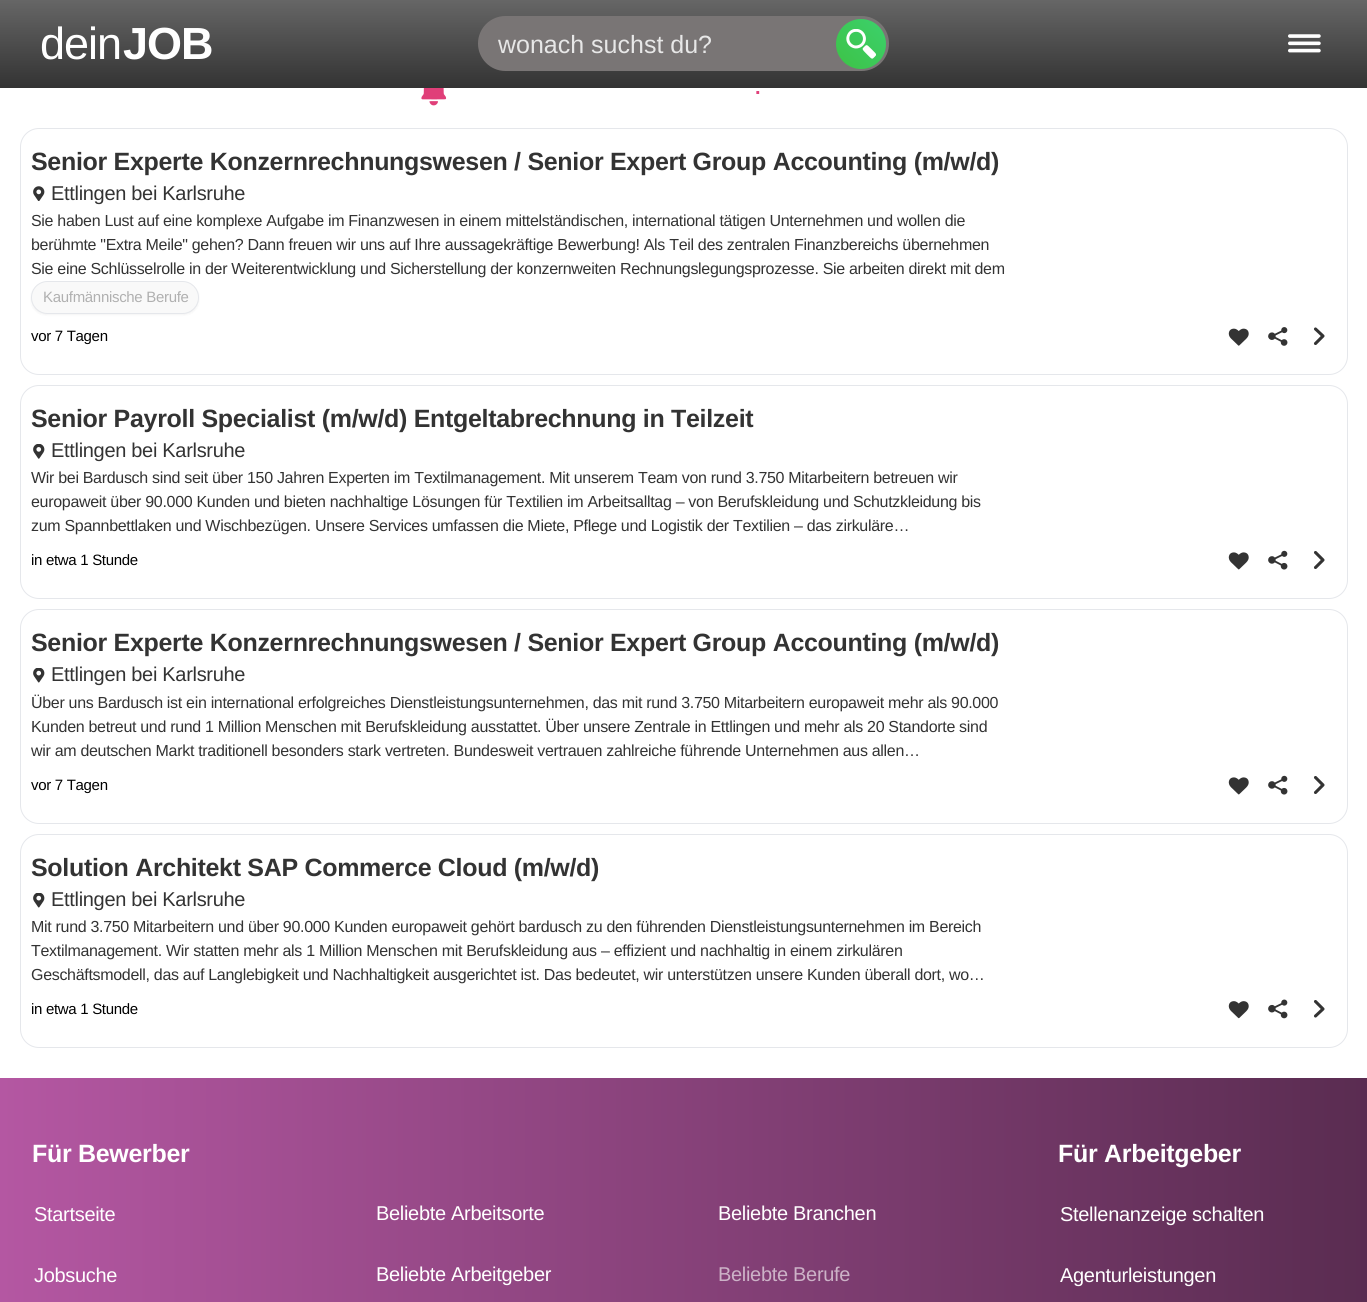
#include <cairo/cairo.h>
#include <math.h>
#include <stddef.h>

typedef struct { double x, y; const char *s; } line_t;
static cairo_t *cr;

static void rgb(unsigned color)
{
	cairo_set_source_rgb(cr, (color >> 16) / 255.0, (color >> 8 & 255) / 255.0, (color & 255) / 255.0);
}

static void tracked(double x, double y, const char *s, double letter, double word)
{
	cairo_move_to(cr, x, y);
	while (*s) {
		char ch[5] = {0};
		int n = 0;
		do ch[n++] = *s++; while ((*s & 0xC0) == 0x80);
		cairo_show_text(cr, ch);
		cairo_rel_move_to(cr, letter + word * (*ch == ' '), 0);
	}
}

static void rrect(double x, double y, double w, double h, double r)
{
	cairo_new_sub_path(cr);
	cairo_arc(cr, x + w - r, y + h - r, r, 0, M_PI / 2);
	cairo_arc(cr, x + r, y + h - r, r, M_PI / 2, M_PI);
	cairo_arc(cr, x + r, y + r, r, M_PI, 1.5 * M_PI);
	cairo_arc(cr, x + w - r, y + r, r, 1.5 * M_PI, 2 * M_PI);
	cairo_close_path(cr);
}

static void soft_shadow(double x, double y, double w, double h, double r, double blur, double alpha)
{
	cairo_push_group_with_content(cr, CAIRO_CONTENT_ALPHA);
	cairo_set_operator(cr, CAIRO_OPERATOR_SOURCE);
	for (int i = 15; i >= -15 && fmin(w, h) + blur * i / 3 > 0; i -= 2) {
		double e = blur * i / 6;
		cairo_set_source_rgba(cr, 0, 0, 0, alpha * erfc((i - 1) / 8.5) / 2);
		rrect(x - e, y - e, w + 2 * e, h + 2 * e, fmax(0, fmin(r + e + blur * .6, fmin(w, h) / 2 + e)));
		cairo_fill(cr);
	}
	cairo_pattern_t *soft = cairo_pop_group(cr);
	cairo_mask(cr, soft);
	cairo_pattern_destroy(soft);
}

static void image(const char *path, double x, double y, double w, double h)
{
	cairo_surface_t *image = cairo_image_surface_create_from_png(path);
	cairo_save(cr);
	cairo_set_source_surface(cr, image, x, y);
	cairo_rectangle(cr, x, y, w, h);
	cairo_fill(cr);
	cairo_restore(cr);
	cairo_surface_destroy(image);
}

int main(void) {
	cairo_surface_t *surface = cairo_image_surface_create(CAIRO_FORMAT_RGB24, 1367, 1302);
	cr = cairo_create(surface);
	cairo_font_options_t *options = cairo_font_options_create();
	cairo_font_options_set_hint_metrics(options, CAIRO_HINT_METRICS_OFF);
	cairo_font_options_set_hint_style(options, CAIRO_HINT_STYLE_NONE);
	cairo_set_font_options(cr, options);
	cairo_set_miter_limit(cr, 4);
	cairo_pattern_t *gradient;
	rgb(0xffffff);
	cairo_paint(cr);
	gradient = cairo_pattern_create_linear(684, 0, 684, 88);
	cairo_pattern_add_color_stop_rgba(gradient, 0, 0.4, 0.4, 0.4, 1);
	cairo_pattern_add_color_stop_rgba(gradient, 1, 0.2, 0.2, 0.2, 1);
	cairo_set_source(cr, gradient);
	cairo_pattern_destroy(gradient);
	cairo_rectangle(cr, 0, 0, 1367, 88);
	cairo_fill(cr);
	rgb(0x797575);
	rrect(478, 16, 411, 55, 27.5);
	cairo_fill(cr);
	gradient = cairo_pattern_create_linear(836, 69, 886, 19);
	cairo_pattern_add_color_stop_rgba(gradient, 0, 0.239, 0.761, 0.275, 1);
	cairo_pattern_add_color_stop_rgba(gradient, 1, 0.235, 0.82, 0.424, 1);
	cairo_set_source(cr, gradient);
	cairo_pattern_destroy(gradient);
	cairo_arc(cr, 861, 44, 25, 0, 2 * M_PI);
	cairo_fill(cr);
	image("img/1.png", 846, 29, 30, 30);
	image("img/2.png", 1288, 34, 33, 19);
	image("img/3.png", 421, 88, 26, 18);
	rrect(20.5, 128.5, 1327, 246, 18.5);
	rgb(0xe5e7eb);
	cairo_set_line_width(cr, 1);
	cairo_stroke(cr);
	image("img/4.png", 33, 186, 12, 15);
	rgb(0x000000);
	soft_shadow(31, 283, 168, 32, 16, 1, 0.05);
	rgb(0xf9f9f9);
	rrect(31.5, 281.5, 167, 32, 16);
	cairo_fill_preserve(cr);
	rgb(0xe5e7eb);
	cairo_stroke(cr);
	image("img/5.png", 1228, 328, 21, 18);
	image("img/6.png", 1268, 327, 20, 19);
	cairo_new_path(cr);
	cairo_move_to(cr, 1315.5, 329);
	cairo_line_to(cr, 1323, 336);
	cairo_line_to(cr, 1315.5, 343.5);
	rgb(0x333333);
	cairo_set_line_width(cr, 3.1);
	cairo_set_line_cap(cr, CAIRO_LINE_CAP_ROUND);
	cairo_set_line_join(cr, CAIRO_LINE_JOIN_ROUND);
	cairo_stroke(cr);
	rrect(20.5, 385.5, 1327, 213, 18.5);
	rgb(0xe5e7eb);
	cairo_set_line_width(cr, 1);
	cairo_set_line_cap(cr, CAIRO_LINE_CAP_BUTT);
	cairo_set_line_join(cr, CAIRO_LINE_JOIN_MITER);
	cairo_stroke(cr);
	image("img/7.png", 33, 444, 12, 15);
	image("img/8.png", 1228, 552, 21, 18);
	image("img/9.png", 1268, 550, 20, 20);
	cairo_new_path(cr);
	cairo_move_to(cr, 1315.5, 552.5);
	cairo_line_to(cr, 1323, 560);
	cairo_line_to(cr, 1315.5, 567.5);
	rgb(0x333333);
	cairo_set_line_width(cr, 3.1);
	cairo_set_line_cap(cr, CAIRO_LINE_CAP_ROUND);
	cairo_set_line_join(cr, CAIRO_LINE_JOIN_ROUND);
	cairo_stroke(cr);
	rrect(20.5, 609.5, 1327, 214, 18.5);
	rgb(0xe5e7eb);
	cairo_set_line_width(cr, 1);
	cairo_set_line_cap(cr, CAIRO_LINE_CAP_BUTT);
	cairo_set_line_join(cr, CAIRO_LINE_JOIN_MITER);
	cairo_stroke(cr);
	image("img/10.png", 33, 668, 12, 15);
	image("img/8.png", 1228, 777, 21, 18);
	image("img/9.png", 1268, 775, 20, 20);
	cairo_new_path(cr);
	cairo_move_to(cr, 1315.5, 777.5);
	cairo_line_to(cr, 1323, 785);
	cairo_line_to(cr, 1315.5, 792.5);
	rgb(0x333333);
	cairo_set_line_width(cr, 3.1);
	cairo_set_line_cap(cr, CAIRO_LINE_CAP_ROUND);
	cairo_set_line_join(cr, CAIRO_LINE_JOIN_ROUND);
	cairo_stroke(cr);
	rrect(20.5, 834.5, 1327, 213, 18.5);
	rgb(0xe5e7eb);
	cairo_set_line_width(cr, 1);
	cairo_set_line_cap(cr, CAIRO_LINE_CAP_BUTT);
	cairo_set_line_join(cr, CAIRO_LINE_JOIN_MITER);
	cairo_stroke(cr);
	image("img/10.png", 33, 893, 12, 15);
	image("img/11.png", 1228, 1001, 21, 18);
	image("img/12.png", 1268, 999, 20, 20);
	cairo_new_path(cr);
	cairo_move_to(cr, 1315.5, 1001.5);
	cairo_line_to(cr, 1323, 1009);
	cairo_line_to(cr, 1315.5, 1016);
	rgb(0x333333);
	cairo_set_line_width(cr, 3.1);
	cairo_set_line_cap(cr, CAIRO_LINE_CAP_ROUND);
	cairo_set_line_join(cr, CAIRO_LINE_JOIN_ROUND);
	cairo_stroke(cr);
	gradient = cairo_pattern_create_linear(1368, 1262, 0, 1263);
	cairo_pattern_add_color_stop_rgba(gradient, 0, 0.353, 0.173, 0.318, 1);
	cairo_pattern_add_color_stop_rgba(gradient, 1, 0.706, 0.341, 0.635, 1);
	cairo_set_source(cr, gradient);
	cairo_pattern_destroy(gradient);
	cairo_rectangle(cr, 0, 1078, 1367, 224);
	cairo_fill(cr);
	cairo_select_font_face(cr, "Liberation Sans", CAIRO_FONT_SLANT_NORMAL, CAIRO_FONT_WEIGHT_NORMAL);
	cairo_set_font_size(cr, 45);
	rgb(0xffffff);
	tracked(40, 59, "dein", -1, 0);
	cairo_select_font_face(cr, "Liberation Sans", CAIRO_FONT_SLANT_NORMAL, CAIRO_FONT_WEIGHT_BOLD);
	tracked(123, 59, "JOB", -1, 0);
	cairo_select_font_face(cr, "Liberation Sans", CAIRO_FONT_SLANT_NORMAL, CAIRO_FONT_WEIGHT_NORMAL);
	cairo_set_font_size(cr, 25);
	rgb(0xe7e7e7);
	cairo_move_to(cr, 498, 53);
	cairo_show_text(cr, "wonach suchst du?");
	cairo_select_font_face(cr, "Liberation Sans", CAIRO_FONT_SLANT_NORMAL, CAIRO_FONT_WEIGHT_BOLD);
	cairo_set_font_size(cr, 20);
	rgb(0xe03f79);
	cairo_move_to(cr, 755, 94);
	cairo_show_text(cr, ".");
	cairo_set_font_size(cr, 25);
	rgb(0x333333);
	tracked(31, 170, "Senior Experte Konzernrechnungswesen / Senior Expert Group Accounting (m/w/d)", -0.31, 0);
	cairo_select_font_face(cr, "Liberation Sans", CAIRO_FONT_SLANT_NORMAL, CAIRO_FONT_WEIGHT_NORMAL);
	cairo_set_font_size(cr, 20);
	tracked(51, 200, "Ettlingen bei Karlsruhe", -0.31, 0);
	cairo_set_font_size(cr, 16);
	{
		static const line_t items[] = {
			{31, 226, "Sie haben Lust auf eine komplexe Aufgabe im Finanzwesen in einem mittelständischen, international tätigen Unternehmen und wollen die"},
			{31, 250, "berühmte \"Extra Meile\" gehen? Dann freuen wir uns auf Ihre aussagekräftige Bewerbung! Als Teil des zentralen Finanzbereichs übernehmen"},
			{31, 274, "Sie eine Schlüsselrolle in der Weiterentwicklung und Sicherstellung der konzernweiten Rechnungslegungsprozesse. Sie arbeiten direkt mit dem"},
		};
		for (size_t i = 0; i < sizeof items / sizeof *items; i++) {
			tracked(items[i].x, items[i].y, items[i].s, -0.31, 0);
		}
	}
	cairo_set_font_size(cr, 15);
	rgb(0xb0b0b0);
	tracked(43, 302, "Kaufmännische Berufe", -0.31, 0);
	rgb(0x000000);
	tracked(31, 341, "vor 7 Tagen", -0.31, 0);
	cairo_select_font_face(cr, "Liberation Sans", CAIRO_FONT_SLANT_NORMAL, CAIRO_FONT_WEIGHT_BOLD);
	cairo_set_font_size(cr, 25);
	rgb(0x333333);
	tracked(31, 427, "Senior Payroll Specialist (m/w/d) Entgeltabrechnung in Teilzeit", -0.31, 0);
	cairo_select_font_face(cr, "Liberation Sans", CAIRO_FONT_SLANT_NORMAL, CAIRO_FONT_WEIGHT_NORMAL);
	cairo_set_font_size(cr, 20);
	tracked(51, 457, "Ettlingen bei Karlsruhe", -0.31, 0);
	cairo_set_font_size(cr, 16);
	{
		static const line_t items[] = {
			{31, 483, "Wir bei Bardusch sind seit über 150 Jahren Experten im Textilmanagement. Mit unserem Team von rund 3.750 Mitarbeitern betreuen wir"},
			{31, 507, "europaweit über 90.000 Kunden und bieten nachhaltige Lösungen für Textilien im Arbeitsalltag – von Berufskleidung und Schutzkleidung bis"},
			{31, 531, "zum Spannbettlaken und Wischbezügen. Unsere Services umfassen die Miete, Pflege und Logistik der Textilien – das zirkuläre…"},
		};
		for (size_t i = 0; i < sizeof items / sizeof *items; i++) {
			tracked(items[i].x, items[i].y, items[i].s, -0.31, 0);
		}
	}
	cairo_set_font_size(cr, 15);
	rgb(0x000000);
	tracked(31, 565, "in etwa 1 Stunde", -0.31, 0);
	cairo_select_font_face(cr, "Liberation Sans", CAIRO_FONT_SLANT_NORMAL, CAIRO_FONT_WEIGHT_BOLD);
	cairo_set_font_size(cr, 25);
	rgb(0x333333);
	tracked(31, 651, "Senior Experte Konzernrechnungswesen / Senior Expert Group Accounting (m/w/d)", -0.31, 0);
	cairo_select_font_face(cr, "Liberation Sans", CAIRO_FONT_SLANT_NORMAL, CAIRO_FONT_WEIGHT_NORMAL);
	cairo_set_font_size(cr, 20);
	tracked(51, 681, "Ettlingen bei Karlsruhe", -0.31, 0);
	cairo_set_font_size(cr, 16);
	{
		static const line_t items[] = {
			{31, 708, "Über uns Bardusch ist ein international erfolgreiches Dienstleistungsunternehmen, das mit rund 3.750 Mitarbeitern europaweit mehr als 90.000"},
			{31, 732, "Kunden betreut und rund 1 Million Menschen mit Berufskleidung ausstattet. Über unsere Zentrale in Ettlingen und mehr als 20 Standorte sind"},
			{31, 756, "wir am deutschen Markt traditionell besonders stark vertreten. Bundesweit vertrauen zahlreiche führende Unternehmen aus allen…"},
		};
		for (size_t i = 0; i < sizeof items / sizeof *items; i++) {
			tracked(items[i].x, items[i].y, items[i].s, -0.31, 0);
		}
	}
	cairo_set_font_size(cr, 15);
	rgb(0x000000);
	tracked(31, 790, "vor 7 Tagen", -0.31, 0);
	cairo_select_font_face(cr, "Liberation Sans", CAIRO_FONT_SLANT_NORMAL, CAIRO_FONT_WEIGHT_BOLD);
	cairo_set_font_size(cr, 25);
	rgb(0x333333);
	tracked(31, 876, "Solution Architekt SAP Commerce Cloud (m/w/d)", -0.31, 0);
	cairo_select_font_face(cr, "Liberation Sans", CAIRO_FONT_SLANT_NORMAL, CAIRO_FONT_WEIGHT_NORMAL);
	cairo_set_font_size(cr, 20);
	tracked(51, 906, "Ettlingen bei Karlsruhe", -0.31, 0);
	cairo_set_font_size(cr, 16);
	{
		static const line_t items[] = {
			{31, 932, "Mit rund 3.750 Mitarbeitern und über 90.000 Kunden europaweit gehört bardusch zu den führenden Dienstleistungsunternehmen im Bereich"},
			{31, 956, "Textilmanagement. Wir statten mehr als 1 Million Menschen mit Berufskleidung aus – effizient und nachhaltig in einem zirkulären"},
			{31, 980, "Geschäftsmodell, das auf Langlebigkeit und Nachhaltigkeit ausgerichtet ist. Das bedeutet, wir unterstützen unsere Kunden überall dort, wo…"},
		};
		for (size_t i = 0; i < sizeof items / sizeof *items; i++) {
			tracked(items[i].x, items[i].y, items[i].s, -0.31, 0);
		}
	}
	cairo_set_font_size(cr, 15);
	rgb(0x000000);
	tracked(31, 1014, "in etwa 1 Stunde", -0.31, 0);
	cairo_select_font_face(cr, "Liberation Sans", CAIRO_FONT_SLANT_NORMAL, CAIRO_FONT_WEIGHT_BOLD);
	cairo_set_font_size(cr, 25);
	rgb(0xffffff);
	tracked(32, 1162, "Für Bewerber", -0.31, 0);
	cairo_select_font_face(cr, "Liberation Sans", CAIRO_FONT_SLANT_NORMAL, CAIRO_FONT_WEIGHT_NORMAL);
	cairo_set_font_size(cr, 20);
	{
		static const line_t items[] = {
			{34, 1221, "Startseite"},
			{34, 1282, "Jobsuche"},
			{376, 1220, "Beliebte Arbeitsorte"},
			{376, 1281, "Beliebte Arbeitgeber"},
			{718, 1220, "Beliebte Branchen"},
		};
		for (size_t i = 0; i < sizeof items / sizeof *items; i++) {
			tracked(items[i].x, items[i].y, items[i].s, -0.31, 0);
		}
	}
	rgb(0xccb2c7);
	tracked(718, 1281, "Beliebte Berufe", -0.31, 0);
	cairo_select_font_face(cr, "Liberation Sans", CAIRO_FONT_SLANT_NORMAL, CAIRO_FONT_WEIGHT_BOLD);
	cairo_set_font_size(cr, 25);
	rgb(0xffffff);
	tracked(1058, 1162, "Für Arbeitgeber", -0.31, 0);
	cairo_select_font_face(cr, "Liberation Sans", CAIRO_FONT_SLANT_NORMAL, CAIRO_FONT_WEIGHT_NORMAL);
	cairo_set_font_size(cr, 20);
	tracked(1060, 1221, "Stellenanzeige schalten", -0.31, 0);
	tracked(1060, 1282, "Agenturleistungen", -0.31, 0);
	cairo_surface_write_to_png(surface, "page.png");
	cairo_font_options_destroy(options);
	cairo_destroy(cr);
	cairo_surface_destroy(surface);
	return 0;
}
